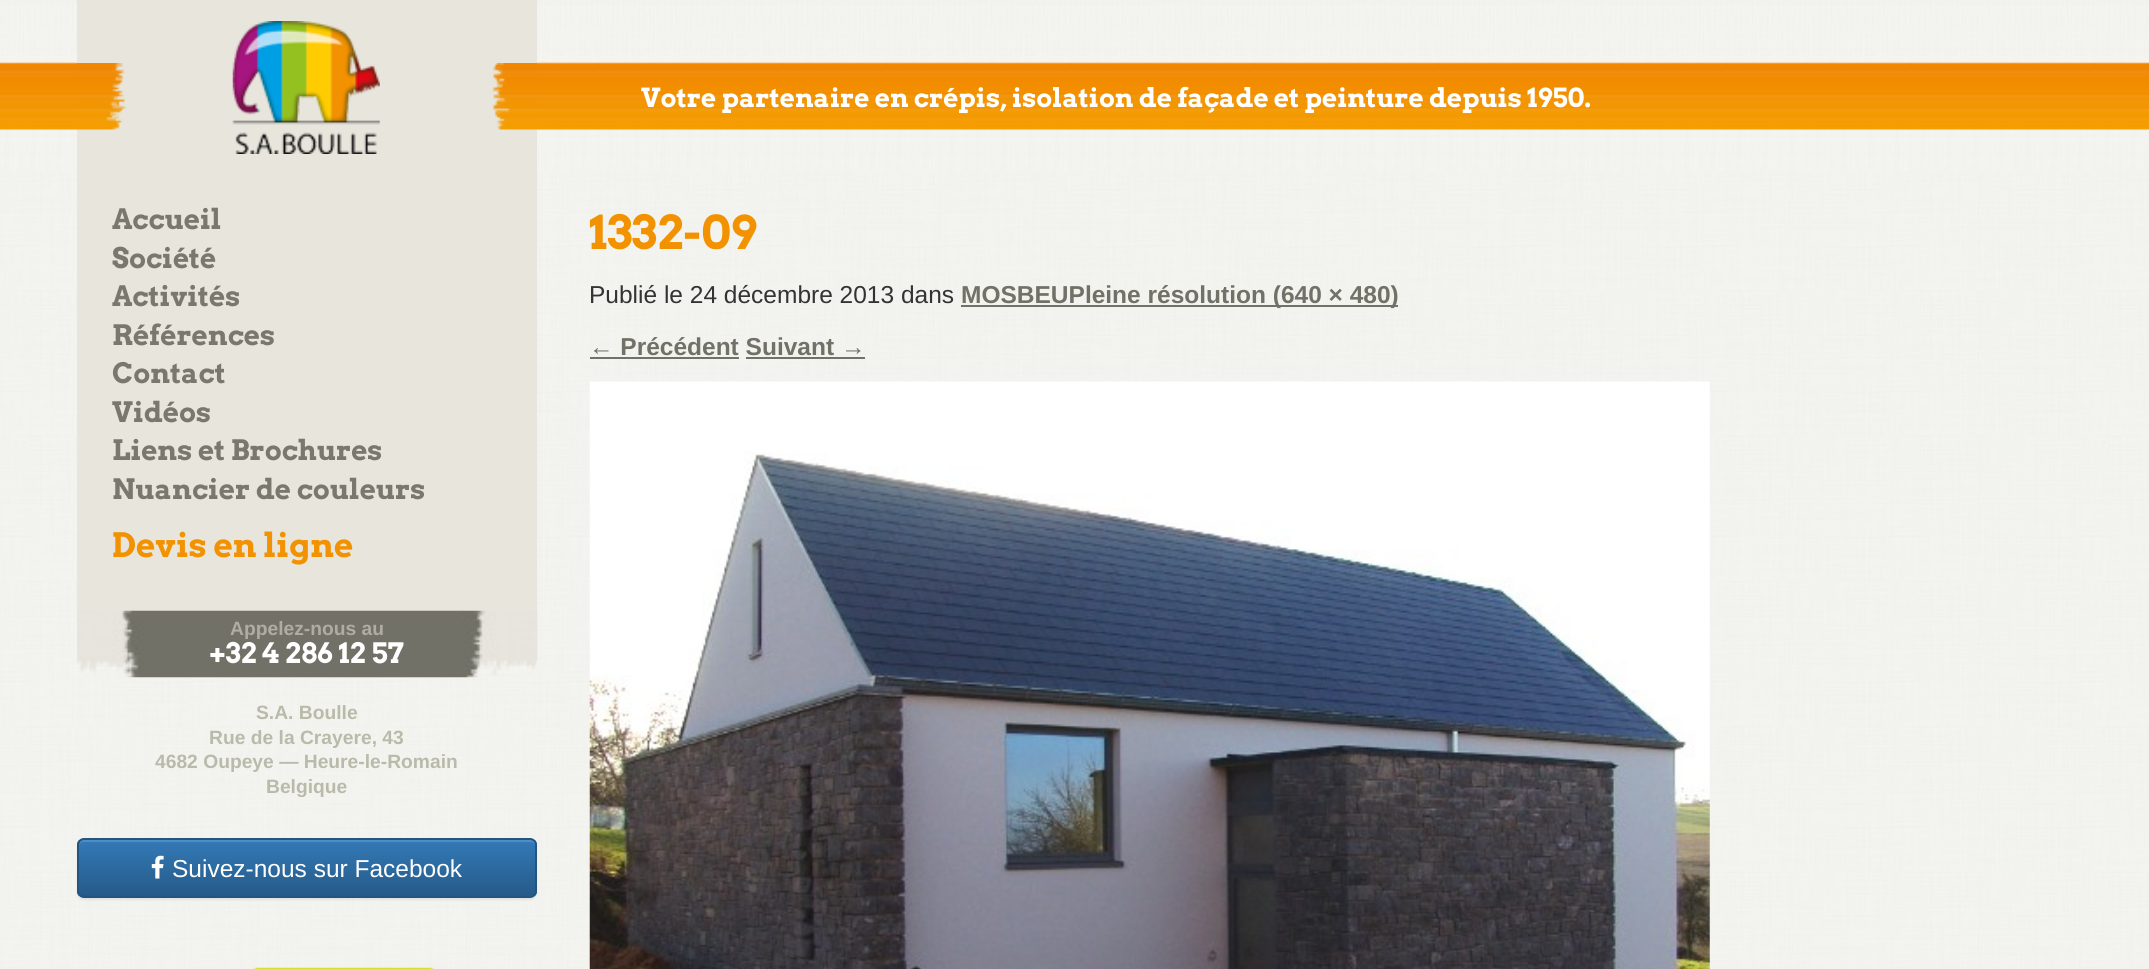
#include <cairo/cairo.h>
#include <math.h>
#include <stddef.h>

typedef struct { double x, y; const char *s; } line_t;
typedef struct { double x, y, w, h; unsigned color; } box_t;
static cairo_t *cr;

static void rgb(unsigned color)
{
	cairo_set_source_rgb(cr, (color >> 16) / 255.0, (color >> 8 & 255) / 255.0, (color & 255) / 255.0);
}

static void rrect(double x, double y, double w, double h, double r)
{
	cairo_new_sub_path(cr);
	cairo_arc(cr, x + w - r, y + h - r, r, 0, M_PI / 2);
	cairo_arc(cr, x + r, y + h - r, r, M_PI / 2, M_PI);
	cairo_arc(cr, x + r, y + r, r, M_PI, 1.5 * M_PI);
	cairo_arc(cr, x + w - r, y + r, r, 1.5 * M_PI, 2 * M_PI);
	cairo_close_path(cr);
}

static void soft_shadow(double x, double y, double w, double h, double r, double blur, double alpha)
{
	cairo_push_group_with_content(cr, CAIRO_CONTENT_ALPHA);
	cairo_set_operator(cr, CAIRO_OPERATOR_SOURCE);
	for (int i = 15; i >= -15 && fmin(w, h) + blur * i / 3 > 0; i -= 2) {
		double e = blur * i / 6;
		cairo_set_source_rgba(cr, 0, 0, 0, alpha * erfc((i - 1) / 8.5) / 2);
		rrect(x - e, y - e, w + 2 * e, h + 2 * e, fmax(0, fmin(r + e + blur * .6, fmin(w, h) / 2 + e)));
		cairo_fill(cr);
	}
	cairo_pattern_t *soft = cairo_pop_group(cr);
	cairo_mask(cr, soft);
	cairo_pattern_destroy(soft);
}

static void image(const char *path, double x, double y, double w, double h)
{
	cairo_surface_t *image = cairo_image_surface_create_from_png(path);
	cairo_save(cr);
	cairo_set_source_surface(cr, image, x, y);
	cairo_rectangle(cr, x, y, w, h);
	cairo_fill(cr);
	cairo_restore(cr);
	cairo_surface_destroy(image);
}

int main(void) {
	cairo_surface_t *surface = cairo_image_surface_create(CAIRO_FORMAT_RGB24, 2149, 969);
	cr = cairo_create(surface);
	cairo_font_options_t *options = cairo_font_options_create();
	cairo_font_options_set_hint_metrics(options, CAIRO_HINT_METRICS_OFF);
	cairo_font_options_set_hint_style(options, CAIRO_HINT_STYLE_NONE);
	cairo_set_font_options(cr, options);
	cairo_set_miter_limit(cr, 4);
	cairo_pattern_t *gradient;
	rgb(0xffffff);
	cairo_paint(cr);
	image("img/1.png", 0, 0, 2149, 969);
	image("img/2.png", 0, 2, 2149, 169);
	rgb(0xe7e5dc);
	cairo_rectangle(cr, 77, 0, 460, 611);
	cairo_fill(cr);
	image("img/3.png", 77, 63, 49, 67);
	image("img/4.png", 232, 21, 148, 133);
	image("img/5.png", 492, 63, 46, 67);
	image("img/6.png", 77, 610, 461, 68);
	rgb(0x000000);
	soft_shadow(77, 840, 460, 60, 7, 1, 0.07);
	cairo_save(cr);
	rrect(77, 838, 460, 60, 7);
	cairo_clip(cr);
	gradient = cairo_pattern_create_linear(307, 840, 307, 896);
	cairo_pattern_add_color_stop_rgba(gradient, 0, 0.2, 0.478, 0.718, 1);
	cairo_pattern_add_color_stop_rgba(gradient, 1, 0.149, 0.353, 0.533, 1);
	cairo_set_source(cr, gradient);
	cairo_pattern_destroy(gradient);
	cairo_rectangle(cr, 77, 840, 460, 56);
	cairo_fill(cr);
	cairo_restore(cr);
	cairo_set_source_rgba(cr, 1, 1, 1, 0.15);
	cairo_new_path(cr);
	cairo_move_to(cr, 84, 842);
	cairo_line_to(cr, 530, 842);
	cairo_curve_to(cr, 533, 842, 536, 844, 536, 847);
	cairo_curve_to(cr, 536, 844, 535, 840, 531, 840);
	cairo_line_to(cr, 84, 840);
	cairo_curve_to(cr, 80, 840, 79, 844, 79, 847);
	cairo_curve_to(cr, 79, 844, 81, 842, 84, 842);
	cairo_close_path(cr);
	cairo_fill(cr);
	rrect(78, 839, 458, 58, 6);
	rgb(0x245580);
	cairo_stroke(cr);
	image("img/7.png", 151, 855, 13, 24);
	image("img/8.png", 253, 967, 182, 2);
	{
		static const box_t items[] = {
			{961, 305, 437, 2, 0x717167},
			{590, 357, 149, 2, 0x717167},
			{746, 357, 119, 2, 0x717167},
		};
		for (size_t i = 0; i < sizeof items / sizeof *items; i++) {
			rgb(items[i].color);
			cairo_rectangle(cr, items[i].x, items[i].y, items[i].w, items[i].h);
			cairo_fill(cr);
		}
	}
	image("img/9.png", 589, 381, 1121, 588);
	cairo_select_font_face(cr, "Arvo", CAIRO_FONT_SLANT_NORMAL, CAIRO_FONT_WEIGHT_BOLD);
	cairo_set_font_size(cr, 26.25);
	rgb(0xffffff);
	cairo_move_to(cr, 641, 107);
	cairo_show_text(cr, "Votre partenaire en crépis, isolation de façade et peinture depuis 1950.");
	cairo_set_font_size(cr, 28);
	rgb(0x78786e);
	{
		static const line_t items[] = {
			{112, 229, "Accueil"},
			{112, 268, "Société"},
			{112, 306, "Activités"},
			{112, 345, "Références"},
			{112, 383, "Contact"},
			{112, 422, "Vidéos"},
			{112, 460, "Liens et Brochures"},
			{112, 499, "Nuancier de couleurs"},
		};
		for (size_t i = 0; i < sizeof items / sizeof *items; i++) {
			cairo_move_to(cr, items[i].x, items[i].y);
			cairo_show_text(cr, items[i].s);
		}
	}
	cairo_set_font_size(cr, 33.5);
	rgb(0xf39200);
	cairo_move_to(cr, 112, 557);
	cairo_show_text(cr, "Devis en ligne");
	cairo_select_font_face(cr, "Liberation Sans", CAIRO_FONT_SLANT_NORMAL, CAIRO_FONT_WEIGHT_BOLD);
	cairo_set_font_size(cr, 19.25);
	rgb(0xafada3);
	cairo_move_to(cr, 230, 635);
	cairo_show_text(cr, "Appelez-nous au");
	cairo_select_font_face(cr, "Arvo", CAIRO_FONT_SLANT_NORMAL, CAIRO_FONT_WEIGHT_BOLD);
	cairo_set_font_size(cr, 28);
	rgb(0xffffff);
	cairo_move_to(cr, 209, 663);
	cairo_show_text(cr, "+32 4 286 12 57");
	cairo_select_font_face(cr, "Liberation Sans", CAIRO_FONT_SLANT_NORMAL, CAIRO_FONT_WEIGHT_BOLD);
	cairo_set_font_size(cr, 19.25);
	rgb(0xbabaab);
	{
		static const line_t items[] = {
			{256, 719, "S.A. Boulle"},
			{209, 744, "Rue de la Crayere, 43"},
			{155, 768, "4682 Oupeye — Heure-le-Romain"},
			{266, 793, "Belgique"},
		};
		for (size_t i = 0; i < sizeof items / sizeof *items; i++) {
			cairo_move_to(cr, items[i].x, items[i].y);
			cairo_show_text(cr, items[i].s);
		}
	}
	cairo_select_font_face(cr, "Liberation Sans", CAIRO_FONT_SLANT_NORMAL, CAIRO_FONT_WEIGHT_NORMAL);
	cairo_set_font_size(cr, 24.5);
	rgb(0xffffff);
	cairo_move_to(cr, 172, 877);
	cairo_show_text(cr, "Suivez-nous sur Facebook");
	cairo_select_font_face(cr, "Arvo", CAIRO_FONT_SLANT_NORMAL, CAIRO_FONT_WEIGHT_BOLD);
	cairo_set_font_size(cr, 46.5);
	rgb(0xf39200);
	cairo_move_to(cr, 589, 249);
	cairo_show_text(cr, "1332-09");
	cairo_select_font_face(cr, "Liberation Sans", CAIRO_FONT_SLANT_NORMAL, CAIRO_FONT_WEIGHT_NORMAL);
	cairo_set_font_size(cr, 24.5);
	rgb(0x333333);
	cairo_move_to(cr, 589, 303);
	cairo_show_text(cr, "Publié le 24 décembre 2013 dans");
	cairo_select_font_face(cr, "Liberation Sans", CAIRO_FONT_SLANT_NORMAL, CAIRO_FONT_WEIGHT_BOLD);
	rgb(0x717167);
	cairo_move_to(cr, 961, 303);
	cairo_show_text(cr, "MOSBEUPleine résolution (640 × 480)");
	cairo_move_to(cr, 589, 355);
	cairo_show_text(cr, "← Précédent Suivant →");
	cairo_surface_write_to_png(surface, "page.png");
	cairo_font_options_destroy(options);
	cairo_destroy(cr);
	cairo_surface_destroy(surface);
	return 0;
}
